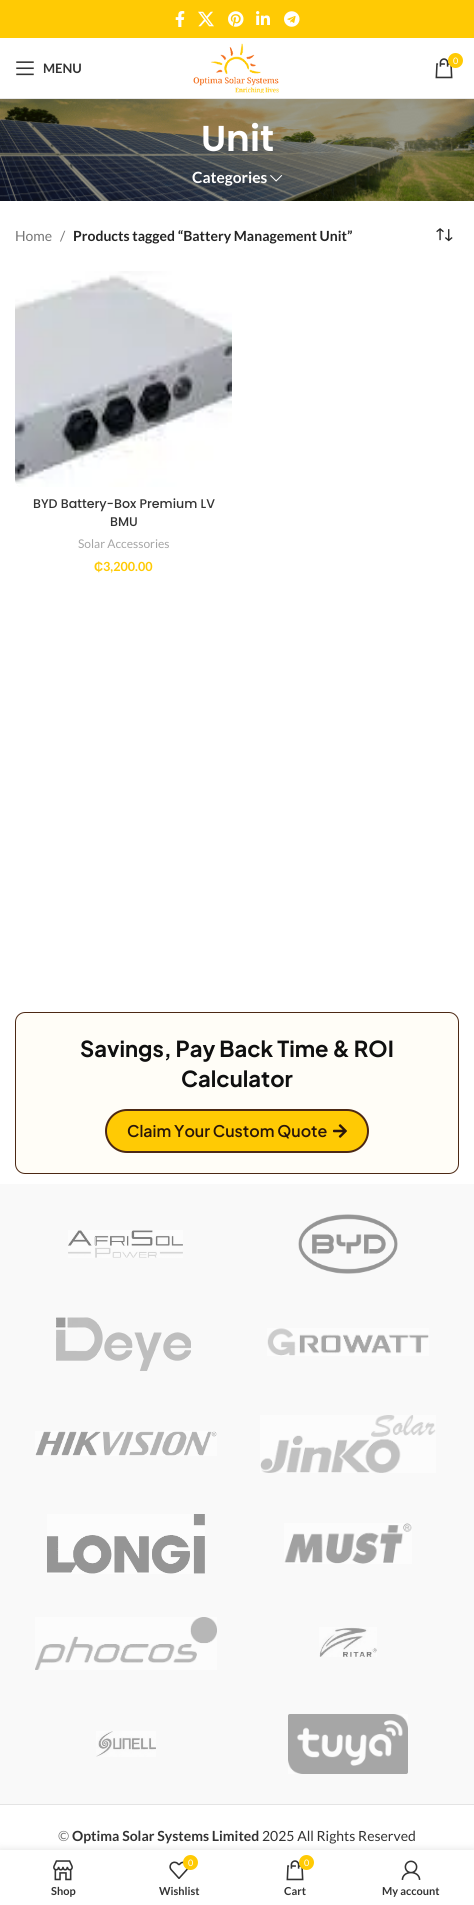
#include <cairo/cairo.h>
#include <math.h>
#include <stddef.h>

static cairo_t *cr;

static void rgb(unsigned color)
{
	cairo_set_source_rgb(cr, (color >> 16) / 255.0, (color >> 8 & 255) / 255.0, (color & 255) / 255.0);
}

static void rrect(double x, double y, double w, double h, double r)
{
	cairo_new_sub_path(cr);
	cairo_arc(cr, x + w - r, y + h - r, r, 0, M_PI / 2);
	cairo_arc(cr, x + r, y + h - r, r, M_PI / 2, M_PI);
	cairo_arc(cr, x + r, y + r, r, M_PI, 1.5 * M_PI);
	cairo_arc(cr, x + w - r, y + r, r, 1.5 * M_PI, 2 * M_PI);
	cairo_close_path(cr);
}

static void soft_shadow(double x, double y, double w, double h, double r, double blur, double alpha)
{
	cairo_push_group_with_content(cr, CAIRO_CONTENT_ALPHA);
	cairo_set_operator(cr, CAIRO_OPERATOR_SOURCE);
	for (int i = 15; i >= -15 && fmin(w, h) + blur * i / 3 > 0; i -= 2) {
		double e = blur * i / 6;
		cairo_set_source_rgba(cr, 0, 0, 0, alpha * erfc((i - 1) / 8.5) / 2);
		rrect(x - e, y - e, w + 2 * e, h + 2 * e, fmax(0, fmin(r + e + blur * .6, fmin(w, h) / 2 + e)));
		cairo_fill(cr);
	}
	cairo_pattern_t *soft = cairo_pop_group(cr);
	cairo_mask(cr, soft);
	cairo_pattern_destroy(soft);
}

static void image(const char *path, double x, double y, double w, double h)
{
	cairo_surface_t *image = cairo_image_surface_create_from_png(path);
	cairo_save(cr);
	cairo_set_source_surface(cr, image, x, y);
	cairo_rectangle(cr, x, y, w, h);
	cairo_fill(cr);
	cairo_restore(cr);
	cairo_surface_destroy(image);
}

int main(void) {
	cairo_surface_t *surface = cairo_image_surface_create(CAIRO_FORMAT_RGB24, 474, 1905);
	cr = cairo_create(surface);
	cairo_font_options_t *options = cairo_font_options_create();
	cairo_font_options_set_hint_metrics(options, CAIRO_HINT_METRICS_OFF);
	cairo_font_options_set_hint_style(options, CAIRO_HINT_STYLE_NONE);
	cairo_set_font_options(cr, options);
	cairo_set_miter_limit(cr, 4);
	rgb(0xffffff);
	cairo_paint(cr);
	rgb(0xffca04);
	cairo_rectangle(cr, 0, 0, 474, 38);
	cairo_fill(cr);
	image("img/1.png", 175, 11, 10, 16);
	image("img/2.png", 198, 11, 16, 16);
	image("img/3.png", 228, 11, 16, 16);
	image("img/4.png", 256, 11, 14, 14);
	image("img/5.png", 284, 11, 16, 16);
	rgb(0xe8e8e8);
	cairo_rectangle(cr, 0, 98, 474, 1);
	cairo_fill(cr);
	image("img/6.png", 193, 43, 86, 50);
	image("img/7.png", 435, 58, 18, 21);
	rgb(0xffca04);
	cairo_arc(cr, 455.5, 60.5, 7.5, 0, 2 * M_PI);
	cairo_fill(cr);
	image("img/8.png", 16, 61, 18, 15);
	image("img/9.png", 0, 99, 474, 102);
	image("img/10.png", 270, 175, 13, 7);
	image("img/11.png", 436, 228, 17, 14);
	image("img/12.png", 15, 271, 217, 216);
	rgb(0xfffdf7);
	rrect(15.5, 1012.5, 443, 161, 9.5);
	cairo_fill_preserve(cr);
	rgb(0x4c2814);
	cairo_set_line_width(cr, 1);
	cairo_stroke(cr);
	rgb(0xffca04);
	rrect(106, 1110, 262, 42, 21);
	cairo_fill_preserve(cr);
	rgb(0x4c2814);
	cairo_set_line_width(cr, 2);
	cairo_stroke(cr);
	image("img/13.png", 333, 1124, 14, 14);
	rgb(0xf9f9f9);
	cairo_rectangle(cr, 0, 1184, 474, 620);
	cairo_fill(cr);
	image("img/14.png", 68, 1230, 115, 28);
	image("img/15.png", 298, 1214, 100, 60);
	image("img/16.png", 56, 1317, 135, 54);
	image("img/17.png", 267, 1328, 162, 28);
	image("img/18.png", 35, 1431, 182, 25);
	image("img/19.png", 260, 1415, 176, 58);
	image("img/20.png", 47, 1514, 158, 60);
	image("img/21.png", 284, 1523, 128, 41);
	image("img/22.png", 35, 1617, 182, 53);
	image("img/23.png", 319, 1627, 58, 30);
	image("img/24.png", 96, 1731, 60, 26);
	image("img/25.png", 288, 1714, 120, 60);
	rgb(0xe4e4e4);
	cairo_rectangle(cr, 0, 1804, 474, 1);
	cairo_fill(cr);
	rgb(0x000000);
	soft_shadow(0, 1850, 474, 55, 0, 4.5, 0.12);
	rgb(0xffffff);
	cairo_rectangle(cr, 0, 1850, 474, 55);
	cairo_fill(cr);
	image("img/26.png", 53, 1860, 20, 21);
	image("img/27.png", 169, 1861, 20, 18);
	rgb(0xffca04);
	cairo_arc(cr, 190.5, 1862.5, 7.5, 0, 2 * M_PI);
	cairo_fill(cr);
	image("img/7.png", 286, 1860, 18, 21);
	cairo_arc(cr, 306.5, 1862.5, 7.5, 0, 2 * M_PI);
	cairo_fill(cr);
	image("img/28.png", 401, 1860, 20, 20);
	cairo_select_font_face(cr, "Lato", CAIRO_FONT_SLANT_NORMAL, CAIRO_FONT_WEIGHT_NORMAL);
	cairo_set_font_size(cr, 9);
	rgb(0xffffff);
	cairo_move_to(cr, 453, 64);
	cairo_show_text(cr, "0");
	cairo_select_font_face(cr, "Lato", CAIRO_FONT_SLANT_NORMAL, CAIRO_FONT_WEIGHT_BOLD);
	cairo_set_font_size(cr, 13);
	rgb(0x333333);
	cairo_move_to(cr, 43, 73);
	cairo_show_text(cr, "MENU");
	cairo_select_font_face(cr, "Poppins SemiBold", CAIRO_FONT_SLANT_NORMAL, CAIRO_FONT_WEIGHT_NORMAL);
	cairo_set_font_size(cr, 36);
	rgb(0xffffff);
	cairo_move_to(cr, 201, 151);
	cairo_show_text(cr, "Unit");
	cairo_select_font_face(cr, "Lato", CAIRO_FONT_SLANT_NORMAL, CAIRO_FONT_WEIGHT_BOLD);
	cairo_set_font_size(cr, 15.5);
	cairo_move_to(cr, 192, 183);
	cairo_show_text(cr, "Categories");
	cairo_select_font_face(cr, "Lato", CAIRO_FONT_SLANT_NORMAL, CAIRO_FONT_WEIGHT_NORMAL);
	cairo_set_font_size(cr, 14);
	rgb(0x767676);
	cairo_move_to(cr, 15, 241);
	cairo_show_text(cr, "Home");
	cairo_move_to(cr, 60, 241);
	cairo_show_text(cr, "/");
	cairo_select_font_face(cr, "Lato", CAIRO_FONT_SLANT_NORMAL, CAIRO_FONT_WEIGHT_BOLD);
	rgb(0x242424);
	cairo_move_to(cr, 73, 241);
	cairo_show_text(cr, "Products tagged “Battery Management Unit”");
	cairo_select_font_face(cr, "Poppins Medium", CAIRO_FONT_SLANT_NORMAL, CAIRO_FONT_WEIGHT_NORMAL);
	cairo_set_font_size(cr, 12.6);
	rgb(0x333333);
	cairo_move_to(cr, 33, 508);
	cairo_show_text(cr, "BYD Battery-Box Premium LV");
	cairo_move_to(cr, 110, 526);
	cairo_show_text(cr, "BMU");
	cairo_select_font_face(cr, "Lato", CAIRO_FONT_SLANT_NORMAL, CAIRO_FONT_WEIGHT_NORMAL);
	cairo_set_font_size(cr, 12);
	rgb(0xa5a5a5);
	cairo_move_to(cr, 78, 548);
	cairo_show_text(cr, "Solar Accessories");
	cairo_select_font_face(cr, "Liberation Sans", CAIRO_FONT_SLANT_NORMAL, CAIRO_FONT_WEIGHT_BOLD);
	cairo_set_font_size(cr, 12.6);
	rgb(0xffca04);
	cairo_move_to(cr, 94, 571);
	cairo_show_text(cr, "₵");
	cairo_select_font_face(cr, "Lato", CAIRO_FONT_SLANT_NORMAL, CAIRO_FONT_WEIGHT_BOLD);
	cairo_move_to(cr, 103, 571);
	cairo_show_text(cr, "3,200.00");
	cairo_select_font_face(cr, "Plus Jakarta Sans", CAIRO_FONT_SLANT_NORMAL, CAIRO_FONT_WEIGHT_BOLD);
	cairo_set_font_size(cr, 22);
	rgb(0x0f0f0f);
	cairo_move_to(cr, 80, 1057);
	cairo_show_text(cr, "Savings, Pay Back Time & ROI");
	cairo_move_to(cr, 181, 1087);
	cairo_show_text(cr, "Calculator");
	cairo_select_font_face(cr, "Plus Jakarta Sans SemiBold", CAIRO_FONT_SLANT_NORMAL, CAIRO_FONT_WEIGHT_NORMAL);
	cairo_set_font_size(cr, 16);
	rgb(0x29160b);
	cairo_move_to(cr, 127, 1137);
	cairo_show_text(cr, "Claim Your Custom Quote");
	cairo_select_font_face(cr, "Lato", CAIRO_FONT_SLANT_NORMAL, CAIRO_FONT_WEIGHT_NORMAL);
	cairo_set_font_size(cr, 14);
	rgb(0x767676);
	cairo_move_to(cr, 58, 1841);
	cairo_show_text(cr, "©");
	cairo_select_font_face(cr, "Lato", CAIRO_FONT_SLANT_NORMAL, CAIRO_FONT_WEIGHT_BOLD);
	rgb(0x333333);
	cairo_move_to(cr, 72, 1841);
	cairo_show_text(cr, "Optima Solar Systems Limited");
	cairo_select_font_face(cr, "Lato", CAIRO_FONT_SLANT_NORMAL, CAIRO_FONT_WEIGHT_NORMAL);
	cairo_move_to(cr, 262, 1841);
	cairo_show_text(cr, "2025 All Rights Reserved");
	cairo_select_font_face(cr, "Lato", CAIRO_FONT_SLANT_NORMAL, CAIRO_FONT_WEIGHT_BOLD);
	cairo_set_font_size(cr, 11);
	cairo_move_to(cr, 51, 1895);
	cairo_show_text(cr, "Shop");
	cairo_select_font_face(cr, "Lato", CAIRO_FONT_SLANT_NORMAL, CAIRO_FONT_WEIGHT_NORMAL);
	cairo_set_font_size(cr, 9);
	rgb(0xffffff);
	cairo_move_to(cr, 188, 1866);
	cairo_show_text(cr, "0");
	cairo_select_font_face(cr, "Lato", CAIRO_FONT_SLANT_NORMAL, CAIRO_FONT_WEIGHT_BOLD);
	cairo_set_font_size(cr, 11);
	rgb(0x333333);
	cairo_move_to(cr, 159, 1895);
	cairo_show_text(cr, "Wishlist");
	cairo_select_font_face(cr, "Lato", CAIRO_FONT_SLANT_NORMAL, CAIRO_FONT_WEIGHT_NORMAL);
	cairo_set_font_size(cr, 9);
	rgb(0xffffff);
	cairo_move_to(cr, 304, 1866);
	cairo_show_text(cr, "0");
	cairo_select_font_face(cr, "Lato", CAIRO_FONT_SLANT_NORMAL, CAIRO_FONT_WEIGHT_BOLD);
	cairo_set_font_size(cr, 11);
	rgb(0x333333);
	cairo_move_to(cr, 284, 1895);
	cairo_show_text(cr, "Cart");
	cairo_move_to(cr, 382, 1895);
	cairo_show_text(cr, "My account");
	cairo_surface_write_to_png(surface, "page.png");
	cairo_font_options_destroy(options);
	cairo_destroy(cr);
	cairo_surface_destroy(surface);
	return 0;
}
